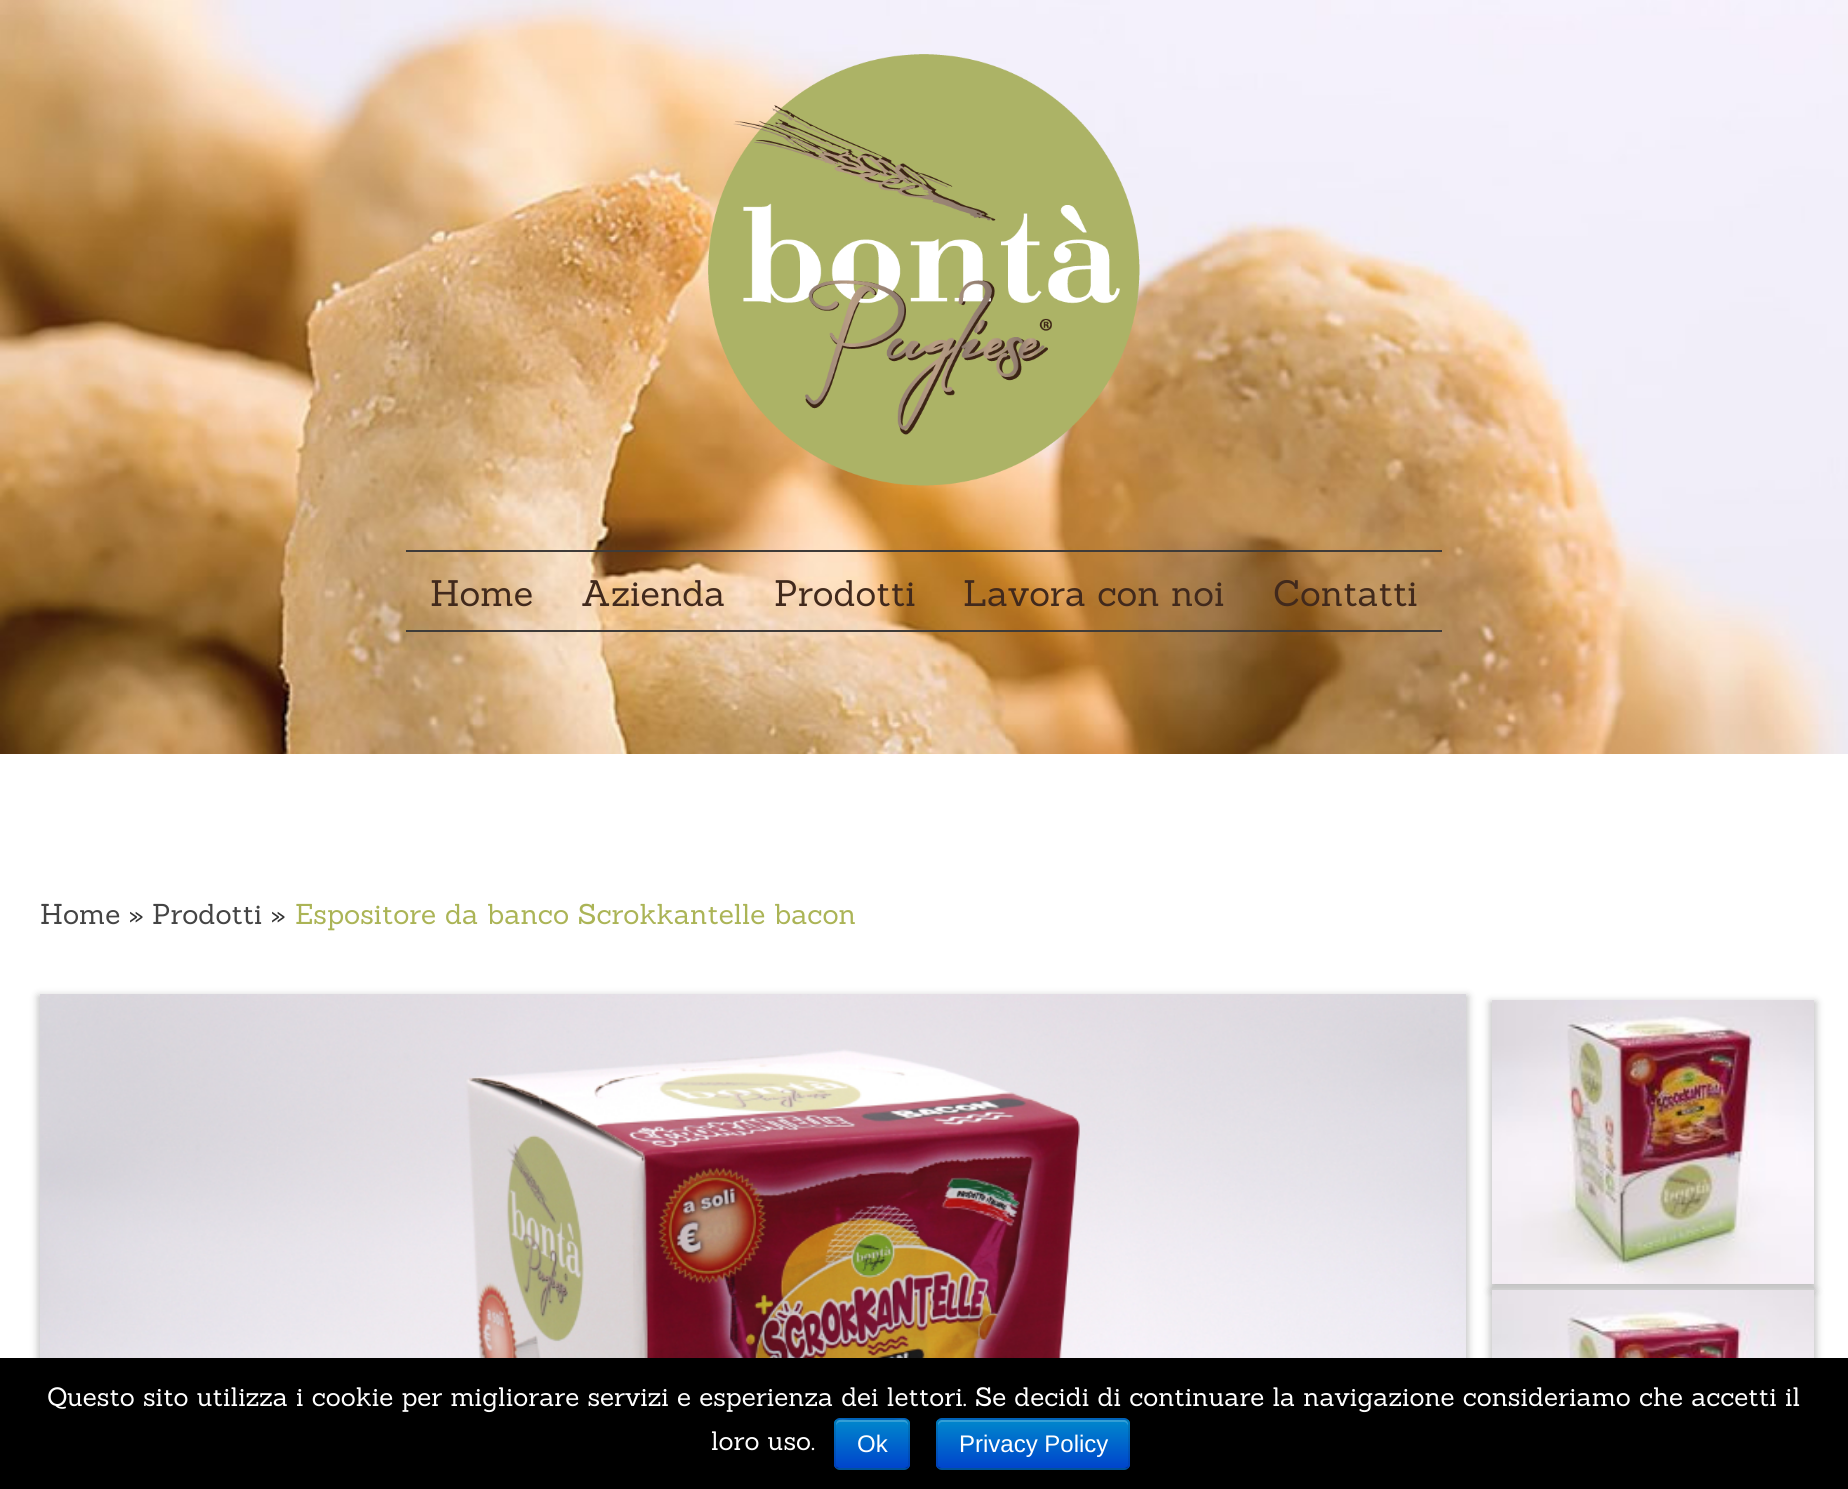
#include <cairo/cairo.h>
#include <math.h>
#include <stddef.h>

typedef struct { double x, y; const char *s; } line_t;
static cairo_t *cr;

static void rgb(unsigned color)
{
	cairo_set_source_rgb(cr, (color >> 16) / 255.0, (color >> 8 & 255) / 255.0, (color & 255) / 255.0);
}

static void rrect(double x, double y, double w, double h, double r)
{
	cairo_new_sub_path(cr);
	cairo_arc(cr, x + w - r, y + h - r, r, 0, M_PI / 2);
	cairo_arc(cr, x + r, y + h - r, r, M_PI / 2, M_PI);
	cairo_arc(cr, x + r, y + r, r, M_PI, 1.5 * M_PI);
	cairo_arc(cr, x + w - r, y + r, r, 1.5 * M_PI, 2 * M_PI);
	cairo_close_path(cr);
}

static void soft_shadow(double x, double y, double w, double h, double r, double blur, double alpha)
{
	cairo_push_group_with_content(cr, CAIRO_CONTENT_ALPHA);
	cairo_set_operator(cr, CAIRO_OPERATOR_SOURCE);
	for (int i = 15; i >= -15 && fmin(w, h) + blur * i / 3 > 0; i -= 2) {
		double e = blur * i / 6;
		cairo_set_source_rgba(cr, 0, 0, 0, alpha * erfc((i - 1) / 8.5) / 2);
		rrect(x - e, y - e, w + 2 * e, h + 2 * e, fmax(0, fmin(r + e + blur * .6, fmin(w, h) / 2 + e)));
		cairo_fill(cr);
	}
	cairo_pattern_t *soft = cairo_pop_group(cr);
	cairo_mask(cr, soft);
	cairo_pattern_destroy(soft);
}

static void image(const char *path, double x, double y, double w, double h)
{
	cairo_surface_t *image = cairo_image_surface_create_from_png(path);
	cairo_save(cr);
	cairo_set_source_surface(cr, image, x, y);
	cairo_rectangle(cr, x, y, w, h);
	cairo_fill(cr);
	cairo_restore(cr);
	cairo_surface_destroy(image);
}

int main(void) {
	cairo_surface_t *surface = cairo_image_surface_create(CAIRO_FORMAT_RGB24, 1848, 1489);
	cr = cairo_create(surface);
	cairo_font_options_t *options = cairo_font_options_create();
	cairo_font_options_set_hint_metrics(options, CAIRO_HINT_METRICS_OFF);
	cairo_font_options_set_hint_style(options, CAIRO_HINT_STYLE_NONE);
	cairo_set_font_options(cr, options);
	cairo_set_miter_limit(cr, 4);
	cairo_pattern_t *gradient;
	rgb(0xffffff);
	cairo_paint(cr);
	image("img/1.png", 0, 0, 1848, 754);
	image("img/2.png", 708, 54, 432, 432);
	rgb(0x3e3b39);
	cairo_rectangle(cr, 406, 550, 1036, 2);
	cairo_fill(cr);
	cairo_rectangle(cr, 406, 630, 1036, 2);
	cairo_fill(cr);
	rgb(0x000000);
	soft_shadow(38, 996, 1430, 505, 0, 4, 0.25);
	image("img/3.png", 40, 994, 1426, 364);
	soft_shadow(1490, 1002, 326, 288, 0, 4, 0.25);
	image("img/4.png", 1492, 1000, 322, 284);
	soft_shadow(1490, 1292, 326, 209, 0, 4, 0.25);
	image("img/5.png", 1492, 1290, 322, 68);
	rgb(0x000000);
	cairo_rectangle(cr, 0, 1358, 1848, 131);
	cairo_fill(cr);
	rgb(0x006dcc);
	rrect(834, 1418, 76, 52, 6);
	cairo_fill(cr);
	cairo_save(cr);
	rrect(834, 1418, 76, 52, 6);
	cairo_clip(cr);
	gradient = cairo_pattern_create_linear(872, 1420, 872, 1468);
	cairo_pattern_add_color_stop_rgba(gradient, 0, 0, 0.533, 0.8, 1);
	cairo_pattern_add_color_stop_rgba(gradient, 1, 0, 0.267, 0.8, 1);
	cairo_set_source(cr, gradient);
	cairo_pattern_destroy(gradient);
	cairo_rectangle(cr, 834, 1420, 76, 48);
	cairo_fill(cr);
	cairo_restore(cr);
	cairo_set_source_rgba(cr, 1, 1, 1, 0.2);
	cairo_new_path(cr);
	cairo_move_to(cr, 840, 1422);
	cairo_line_to(cr, 904, 1422);
	cairo_curve_to(cr, 906, 1422, 908, 1424, 908, 1426);
	cairo_curve_to(cr, 908, 1417, 901, 1420, 893, 1420);
	cairo_line_to(cr, 851, 1420);
	cairo_curve_to(cr, 843, 1420, 836, 1417, 836, 1426);
	cairo_curve_to(cr, 836, 1424, 838, 1422, 840, 1422);
	cairo_close_path(cr);
	cairo_fill(cr);
	cairo_new_path(cr);
	cairo_move_to(cr, 907.5, 1467.5);
	cairo_curve_to(cr, 906.5, 1468.5, 905.5, 1469, 904, 1469);
	cairo_line_to(cr, 840, 1469);
	cairo_curve_to(cr, 838.5, 1469, 837.5, 1468.5, 836.5, 1467.5);
	cairo_set_source_rgba(cr, 0, 0, 0, 0.25);
	cairo_stroke(cr);
	cairo_new_path(cr);
	cairo_move_to(cr, 836.5, 1467.5);
	cairo_curve_to(cr, 835.5, 1466.5, 835, 1465.5, 835, 1464);
	cairo_line_to(cr, 835, 1424);
	cairo_curve_to(cr, 835, 1422.5, 835.5, 1421.5, 836.5, 1420.5);
	cairo_curve_to(cr, 837.5, 1419.5, 838.5, 1419, 840, 1419);
	cairo_line_to(cr, 904, 1419);
	cairo_curve_to(cr, 905.5, 1419, 906.5, 1419.5, 907.5, 1420.5);
	cairo_curve_to(cr, 908.5, 1421.5, 909, 1422.5, 909, 1424);
	cairo_line_to(cr, 909, 1464);
	cairo_curve_to(cr, 909, 1465.5, 908.5, 1466.5, 907.5, 1467.5);
	cairo_set_source_rgba(cr, 0, 0, 0, 0.1);
	cairo_stroke(cr);
	rgb(0x006dcc);
	rrect(936, 1418, 194, 52, 6);
	cairo_fill(cr);
	cairo_save(cr);
	rrect(936, 1418, 194, 52, 6);
	cairo_clip(cr);
	gradient = cairo_pattern_create_linear(1033, 1420, 1033, 1468);
	cairo_pattern_add_color_stop_rgba(gradient, 0, 0, 0.533, 0.8, 1);
	cairo_pattern_add_color_stop_rgba(gradient, 1, 0, 0.267, 0.8, 1);
	cairo_set_source(cr, gradient);
	cairo_pattern_destroy(gradient);
	cairo_rectangle(cr, 936, 1420, 194, 48);
	cairo_fill(cr);
	cairo_restore(cr);
	cairo_set_source_rgba(cr, 1, 1, 1, 0.2);
	cairo_new_path(cr);
	cairo_move_to(cr, 942, 1422);
	cairo_line_to(cr, 1124, 1422);
	cairo_curve_to(cr, 1126, 1422, 1128, 1424, 1128, 1426);
	cairo_line_to(cr, 1128, 1424);
	cairo_curve_to(cr, 1128, 1422, 1126, 1420, 1124, 1420);
	cairo_line_to(cr, 942, 1420);
	cairo_curve_to(cr, 940, 1420, 938, 1422, 938, 1424);
	cairo_line_to(cr, 938, 1426);
	cairo_curve_to(cr, 938, 1424, 940, 1422, 942, 1422);
	cairo_close_path(cr);
	cairo_fill(cr);
	cairo_new_path(cr);
	cairo_move_to(cr, 1127.5, 1467.5);
	cairo_curve_to(cr, 1126.5, 1468.5, 1125.5, 1469, 1124, 1469);
	cairo_line_to(cr, 942, 1469);
	cairo_curve_to(cr, 940.5, 1469, 939.5, 1468.5, 938.5, 1467.5);
	cairo_set_source_rgba(cr, 0, 0, 0, 0.25);
	cairo_stroke(cr);
	cairo_new_path(cr);
	cairo_move_to(cr, 938.5, 1467.5);
	cairo_curve_to(cr, 937.5, 1466.5, 937, 1465.5, 937, 1464);
	cairo_line_to(cr, 937, 1424);
	cairo_curve_to(cr, 937, 1422.5, 937.5, 1421.5, 938.5, 1420.5);
	cairo_curve_to(cr, 939.5, 1419.5, 940.5, 1419, 942, 1419);
	cairo_line_to(cr, 1124, 1419);
	cairo_curve_to(cr, 1125.5, 1419, 1126.5, 1419.5, 1127.5, 1420.5);
	cairo_curve_to(cr, 1128.5, 1421.5, 1129, 1422.5, 1129, 1424);
	cairo_line_to(cr, 1129, 1464);
	cairo_curve_to(cr, 1129, 1465.5, 1128.5, 1466.5, 1127.5, 1467.5);
	cairo_set_source_rgba(cr, 0, 0, 0, 0.1);
	cairo_stroke(cr);
	cairo_select_font_face(cr, "Sanchez", CAIRO_FONT_SLANT_NORMAL, CAIRO_FONT_WEIGHT_NORMAL);
	cairo_set_font_size(cr, 36);
	rgb(0x41291c);
	{
		static const line_t items[] = {
			{430, 606, "Home"},
			{581, 606, "Azienda"},
			{774, 606, "Prodotti"},
			{963, 606, "Lavora con noi"},
			{1273, 606, "Contatti"},
		};
		for (size_t i = 0; i < sizeof items / sizeof *items; i++) {
			cairo_move_to(cr, items[i].x, items[i].y);
			cairo_show_text(cr, items[i].s);
		}
	}
	cairo_set_font_size(cr, 28);
	rgb(0x444444);
	cairo_move_to(cr, 40, 924);
	cairo_show_text(cr, "Home");
	rgb(0x333333);
	cairo_move_to(cr, 129, 924);
	cairo_show_text(cr, "»");
	rgb(0x444444);
	cairo_move_to(cr, 152, 924);
	cairo_show_text(cr, "Prodotti");
	rgb(0x333333);
	cairo_move_to(cr, 271, 924);
	cairo_show_text(cr, "»");
	rgb(0xabb456);
	cairo_move_to(cr, 295, 924);
	cairo_show_text(cr, "Espositore da banco Scrokkantelle bacon");
	cairo_set_font_size(cr, 26);
	rgb(0xffffff);
	cairo_move_to(cr, 47, 1406);
	cairo_show_text(cr, "Questo sito utilizza i cookie per migliorare servizi e esperienza dei lettori. Se decidi di continuare la navigazione consideriamo che accetti il");
	cairo_move_to(cr, 711, 1450);
	cairo_show_text(cr, "loro uso.");
	cairo_select_font_face(cr, "Liberation Sans", CAIRO_FONT_SLANT_NORMAL, CAIRO_FONT_WEIGHT_NORMAL);
	cairo_set_font_size(cr, 24);
	cairo_move_to(cr, 857, 1452);
	cairo_show_text(cr, "Ok");
	cairo_move_to(cr, 959, 1452);
	cairo_show_text(cr, "Privacy Policy");
	cairo_surface_write_to_png(surface, "page.png");
	cairo_font_options_destroy(options);
	cairo_destroy(cr);
	cairo_surface_destroy(surface);
	return 0;
}
